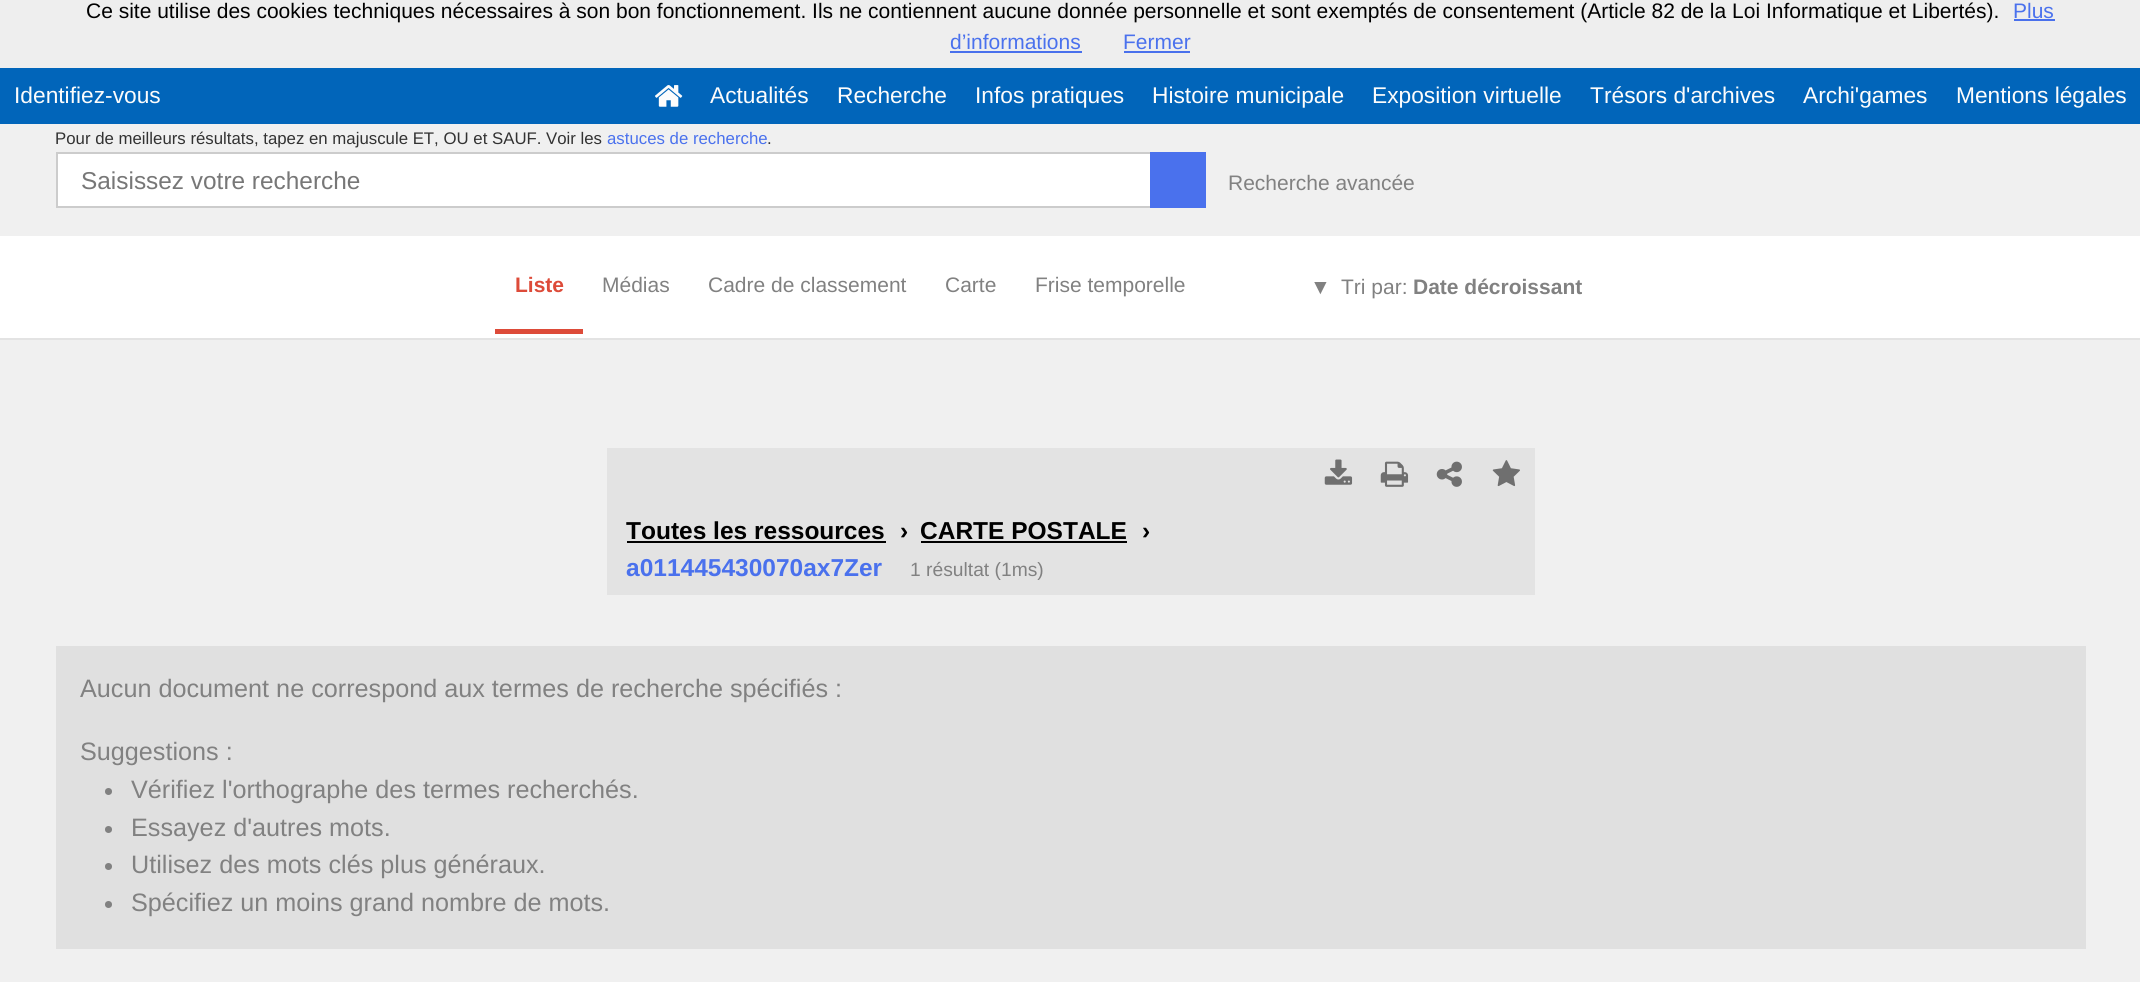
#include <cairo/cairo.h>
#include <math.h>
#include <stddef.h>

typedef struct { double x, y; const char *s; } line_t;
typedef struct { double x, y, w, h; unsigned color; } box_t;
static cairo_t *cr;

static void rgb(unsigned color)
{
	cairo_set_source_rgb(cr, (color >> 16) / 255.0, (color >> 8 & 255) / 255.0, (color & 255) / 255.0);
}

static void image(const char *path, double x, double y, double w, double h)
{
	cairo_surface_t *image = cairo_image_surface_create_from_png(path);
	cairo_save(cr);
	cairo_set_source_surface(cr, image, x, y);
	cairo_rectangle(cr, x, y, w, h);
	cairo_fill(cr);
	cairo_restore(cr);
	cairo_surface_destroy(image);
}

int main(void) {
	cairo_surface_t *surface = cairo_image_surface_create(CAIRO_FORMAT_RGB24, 2140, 982);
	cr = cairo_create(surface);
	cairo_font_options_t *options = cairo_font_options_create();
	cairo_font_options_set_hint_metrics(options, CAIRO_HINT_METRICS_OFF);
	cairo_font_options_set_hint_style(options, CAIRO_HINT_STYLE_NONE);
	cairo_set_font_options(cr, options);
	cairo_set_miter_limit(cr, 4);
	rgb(0xffffff);
	cairo_paint(cr);
	{
		static const box_t items[] = {
			{0, 0, 2140, 68, 0xeeeeee},
			{2014, 19, 41, 2, 0x4970ec},
			{950, 51, 132, 2, 0x4970ec},
			{1124, 51, 66, 2, 0x4970ec},
			{0, 68, 2140, 56, 0x0165ba},
		};
		for (size_t i = 0; i < sizeof items / sizeof *items; i++) {
			rgb(items[i].color);
			cairo_rectangle(cr, items[i].x, items[i].y, items[i].w, items[i].h);
			cairo_fill(cr);
		}
	}
	image("img/1.png", 655, 85, 28, 22);
	rgb(0xf0f0f0);
	cairo_rectangle(cr, 0, 124, 2140, 112);
	cairo_fill(cr);
	rgb(0xffffff);
	cairo_rectangle(cr, 58, 154, 1092, 52);
	cairo_fill(cr);
	cairo_rectangle(cr, 57, 153, 1148, 54);
	rgb(0xcccccc);
	cairo_stroke(cr);
	{
		static const box_t items[] = {
			{1150, 152, 56, 56, 0x4a71ed},
			{0, 338, 2140, 2, 0xe3e3e3},
			{495, 329, 88, 5, 0xdd4b39},
			{0, 340, 2140, 642, 0xf0f0f0},
			{607, 448, 928, 147, 0xe3e3e3},
		};
		for (size_t i = 0; i < sizeof items / sizeof *items; i++) {
			rgb(items[i].color);
			cairo_rectangle(cr, items[i].x, items[i].y, items[i].w, items[i].h);
			cairo_fill(cr);
		}
	}
	image("img/2.png", 1324, 459, 29, 26);
	image("img/3.png", 1380, 461, 29, 26);
	image("img/4.png", 1436, 461, 26, 26);
	image("img/5.png", 1492, 460, 28, 27);
	{
		static const box_t items[] = {
			{627, 541, 259, 2, 0x000000},
			{921, 541, 206, 2, 0x000000},
			{56, 646, 2030, 303, 0xe0e0e0},
		};
		for (size_t i = 0; i < sizeof items / sizeof *items; i++) {
			rgb(items[i].color);
			cairo_rectangle(cr, items[i].x, items[i].y, items[i].w, items[i].h);
			cairo_fill(cr);
		}
	}
	rgb(0x818181);
	cairo_arc(cr, 108.5, 791.5, 3.5, 0, 2 * M_PI);
	cairo_fill(cr);
	cairo_arc(cr, 108.5, 829.5, 3.5, 0, 2 * M_PI);
	cairo_fill(cr);
	cairo_arc(cr, 108.5, 866.5, 3.5, 0, 2 * M_PI);
	cairo_fill(cr);
	cairo_arc(cr, 108.5, 904.5, 3.5, 0, 2 * M_PI);
	cairo_fill(cr);
	cairo_select_font_face(cr, "Liberation Sans", CAIRO_FONT_SLANT_NORMAL, CAIRO_FONT_WEIGHT_NORMAL);
	cairo_set_font_size(cr, 21);
	rgb(0x000000);
	cairo_move_to(cr, 86, 18);
	cairo_show_text(cr, "Ce site utilise des cookies techniques nécessaires à son bon fonctionnement. Ils ne contiennent aucune donnée personnelle et sont exemptés de consentement (Article 82 de la Loi Informatique et Libertés).");
	rgb(0x4a71ed);
	{
		static const line_t items[] = {
			{2013, 18, "Plus"},
			{950, 49, "d’informations"},
			{1123, 49, "Fermer"},
		};
		for (size_t i = 0; i < sizeof items / sizeof *items; i++) {
			cairo_move_to(cr, items[i].x, items[i].y);
			cairo_show_text(cr, items[i].s);
		}
	}
	cairo_set_font_size(cr, 22.75);
	rgb(0xfcfcfc);
	{
		static const line_t items[] = {
			{14, 103, "Identifiez-vous"},
			{710, 103, "Actualités"},
			{837, 103, "Recherche"},
			{975, 103, "Infos pratiques"},
			{1152, 103, "Histoire municipale"},
			{1372, 103, "Exposition virtuelle"},
			{1590, 103, "Trésors d'archives"},
			{1803, 103, "Archi'games"},
			{1956, 103, "Mentions légales"},
		};
		for (size_t i = 0; i < sizeof items / sizeof *items; i++) {
			cairo_move_to(cr, items[i].x, items[i].y);
			cairo_show_text(cr, items[i].s);
		}
	}
	cairo_set_font_size(cr, 16.8);
	rgb(0x323232);
	cairo_move_to(cr, 55, 144);
	cairo_show_text(cr, "Pour de meilleurs résultats, tapez en majuscule ET, OU et SAUF.");
	cairo_move_to(cr, 546, 144);
	cairo_show_text(cr, "Voir les");
	rgb(0x4a71ed);
	cairo_move_to(cr, 607, 144);
	cairo_show_text(cr, "astuces de recherche");
	rgb(0x323232);
	cairo_move_to(cr, 767, 144);
	cairo_show_text(cr, ".");
	cairo_set_font_size(cr, 24.4);
	rgb(0x777777);
	cairo_move_to(cr, 81, 189);
	cairo_show_text(cr, "Saisissez votre recherche");
	cairo_set_font_size(cr, 21);
	rgb(0x818181);
	cairo_move_to(cr, 1228, 190);
	cairo_show_text(cr, "Recherche avancée");
	cairo_select_font_face(cr, "Liberation Sans", CAIRO_FONT_SLANT_NORMAL, CAIRO_FONT_WEIGHT_BOLD);
	rgb(0xdd4b39);
	cairo_move_to(cr, 515, 292);
	cairo_show_text(cr, "Liste");
	cairo_select_font_face(cr, "Liberation Sans", CAIRO_FONT_SLANT_NORMAL, CAIRO_FONT_WEIGHT_NORMAL);
	rgb(0x818181);
	{
		static const line_t items[] = {
			{602, 292, "Médias"},
			{708, 292, "Cadre de classement"},
			{945, 292, "Carte"},
			{1035, 292, "Frise temporelle"},
			{1310, 294, "▼"},
			{1341, 294, "Tri par:"},
		};
		for (size_t i = 0; i < sizeof items / sizeof *items; i++) {
			cairo_move_to(cr, items[i].x, items[i].y);
			cairo_show_text(cr, items[i].s);
		}
	}
	cairo_select_font_face(cr, "Liberation Sans", CAIRO_FONT_SLANT_NORMAL, CAIRO_FONT_WEIGHT_BOLD);
	cairo_move_to(cr, 1413, 294);
	cairo_show_text(cr, "Date décroissant");
	cairo_set_font_size(cr, 24.5);
	rgb(0x000000);
	{
		static const line_t items[] = {
			{626, 539, "Toutes les ressources"},
			{900, 539, "›"},
			{920, 539, "CARTE POSTALE"},
			{1142, 539, "›"},
		};
		for (size_t i = 0; i < sizeof items / sizeof *items; i++) {
			cairo_move_to(cr, items[i].x, items[i].y);
			cairo_show_text(cr, items[i].s);
		}
	}
	rgb(0x4a71ed);
	cairo_move_to(cr, 626, 576);
	cairo_show_text(cr, "a011445430070ax7Zer");
	cairo_select_font_face(cr, "Liberation Sans", CAIRO_FONT_SLANT_NORMAL, CAIRO_FONT_WEIGHT_NORMAL);
	cairo_set_font_size(cr, 19.25);
	rgb(0x818181);
	cairo_move_to(cr, 910, 576);
	cairo_show_text(cr, "1 résultat (1ms)");
	cairo_set_font_size(cr, 25.2);
	{
		static const line_t items[] = {
			{80, 697, "Aucun document ne correspond aux termes de recherche spécifiés :"},
			{80, 760, "Suggestions :"},
			{131, 798, "Vérifiez l'orthographe des termes recherchés."},
			{131, 836, "Essayez d'autres mots."},
			{131, 873, "Utilisez des mots clés plus généraux."},
			{131, 911, "Spécifiez un moins grand nombre de mots."},
		};
		for (size_t i = 0; i < sizeof items / sizeof *items; i++) {
			cairo_move_to(cr, items[i].x, items[i].y);
			cairo_show_text(cr, items[i].s);
		}
	}
	cairo_surface_write_to_png(surface, "page.png");
	cairo_font_options_destroy(options);
	cairo_destroy(cr);
	cairo_surface_destroy(surface);
	return 0;
}
